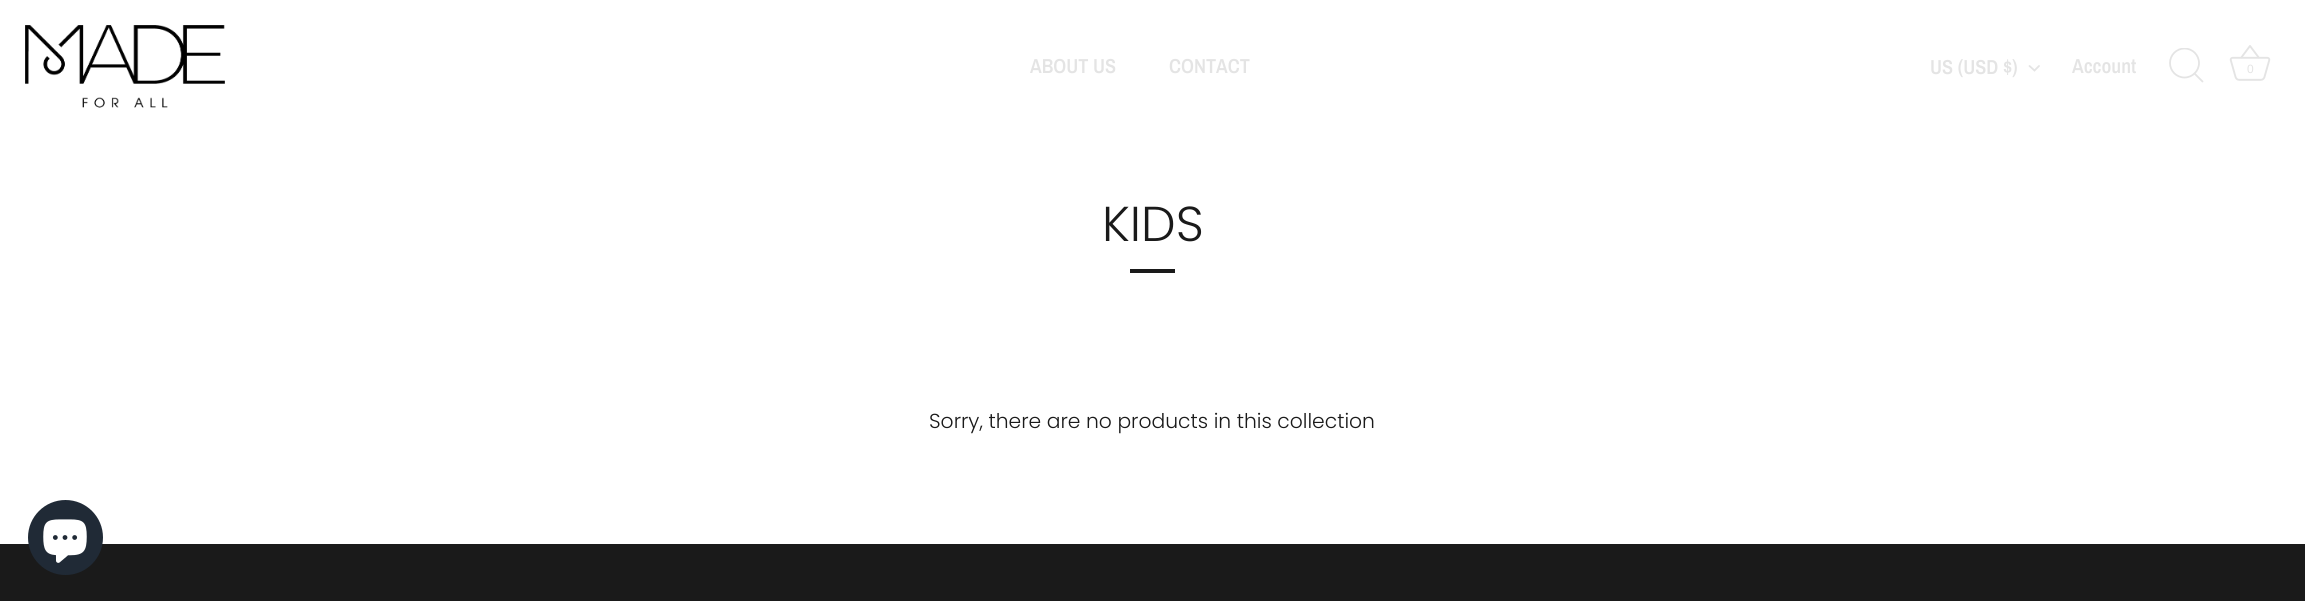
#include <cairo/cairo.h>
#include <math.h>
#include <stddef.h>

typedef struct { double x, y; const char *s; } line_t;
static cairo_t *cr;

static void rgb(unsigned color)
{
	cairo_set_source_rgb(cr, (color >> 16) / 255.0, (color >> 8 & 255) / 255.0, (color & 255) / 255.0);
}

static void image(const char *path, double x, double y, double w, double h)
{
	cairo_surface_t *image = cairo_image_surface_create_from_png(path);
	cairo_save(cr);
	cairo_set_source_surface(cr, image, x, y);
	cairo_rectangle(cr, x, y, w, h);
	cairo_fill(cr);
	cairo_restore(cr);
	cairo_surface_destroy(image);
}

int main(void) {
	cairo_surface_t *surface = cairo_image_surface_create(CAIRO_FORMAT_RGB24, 2305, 601);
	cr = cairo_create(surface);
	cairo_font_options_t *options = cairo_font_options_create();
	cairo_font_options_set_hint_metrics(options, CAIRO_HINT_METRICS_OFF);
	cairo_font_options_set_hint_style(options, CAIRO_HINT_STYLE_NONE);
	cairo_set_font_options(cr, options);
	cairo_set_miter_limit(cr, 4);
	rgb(0xffffff);
	cairo_paint(cr);
	image("img/1.png", 25, 25, 200, 83);
	cairo_new_path(cr);
	cairo_move_to(cr, 2029.5, 66);
	cairo_line_to(cr, 2034.5, 70.5);
	cairo_line_to(cr, 2039, 66);
	rgb(0xe4e4e4);
	cairo_set_line_width(cr, 1.8);
	cairo_set_line_cap(cr, CAIRO_LINE_CAP_ROUND);
	cairo_stroke(cr);
	cairo_save(cr);
	cairo_rectangle(cr, 2169, 48, 36, 36);
	cairo_clip(cr);
	cairo_arc(cr, 2184.5, 63, 14.5, 0, 2 * M_PI);
	cairo_set_line_cap(cr, CAIRO_LINE_CAP_BUTT);
	cairo_stroke(cr);
	cairo_restore(cr);
	cairo_new_path(cr);
	cairo_move_to(cr, 2202.5, 81.5);
	cairo_line_to(cr, 2194.5, 73.5);
	cairo_set_line_join(cr, CAIRO_LINE_JOIN_ROUND);
	cairo_stroke(cr);
	image("img/2.png", 2229, 45, 42, 36);
	rgb(0x1a1a1a);
	cairo_rectangle(cr, 1130, 269, 45, 4);
	cairo_fill(cr);
	cairo_rectangle(cr, 0, 544, 2305, 57);
	cairo_fill(cr);
	rgb(0x202a36);
	cairo_arc(cr, 65.5, 537.5, 37.5, 0, 2 * M_PI);
	cairo_fill(cr);
	image("img/3.png", 43, 519, 44, 44);
	cairo_select_font_face(cr, "Archivo Narrow SemiBold", CAIRO_FONT_SLANT_NORMAL, CAIRO_FONT_WEIGHT_NORMAL);
	cairo_set_font_size(cr, 20.25);
	rgb(0xe4e4e4);
	{
		static const line_t items[] = {
			{1030, 73, "ABOUT US"},
			{1169, 73, "CONTACT"},
			{1930, 74, "US (USD $)"},
			{2072, 73, "Account"},
		};
		for (size_t i = 0; i < sizeof items / sizeof *items; i++) {
			cairo_move_to(cr, items[i].x, items[i].y);
			cairo_show_text(cr, items[i].s);
		}
	}
	cairo_select_font_face(cr, "Arimo", CAIRO_FONT_SLANT_NORMAL, CAIRO_FONT_WEIGHT_NORMAL);
	cairo_set_font_size(cr, 12);
	cairo_move_to(cr, 2247, 73);
	cairo_show_text(cr, "0");
	cairo_select_font_face(cr, "Poppins Light", CAIRO_FONT_SLANT_NORMAL, CAIRO_FONT_WEIGHT_NORMAL);
	cairo_set_font_size(cr, 49);
	rgb(0x1a1a1a);
	cairo_move_to(cr, 1102, 241);
	cairo_show_text(cr, "KIDS");
	cairo_set_font_size(cr, 20.3);
	cairo_move_to(cr, 929, 428);
	cairo_show_text(cr, "Sorry, there are no products in this collection");
	cairo_surface_write_to_png(surface, "page.png");
	cairo_font_options_destroy(options);
	cairo_destroy(cr);
	cairo_surface_destroy(surface);
	return 0;
}
